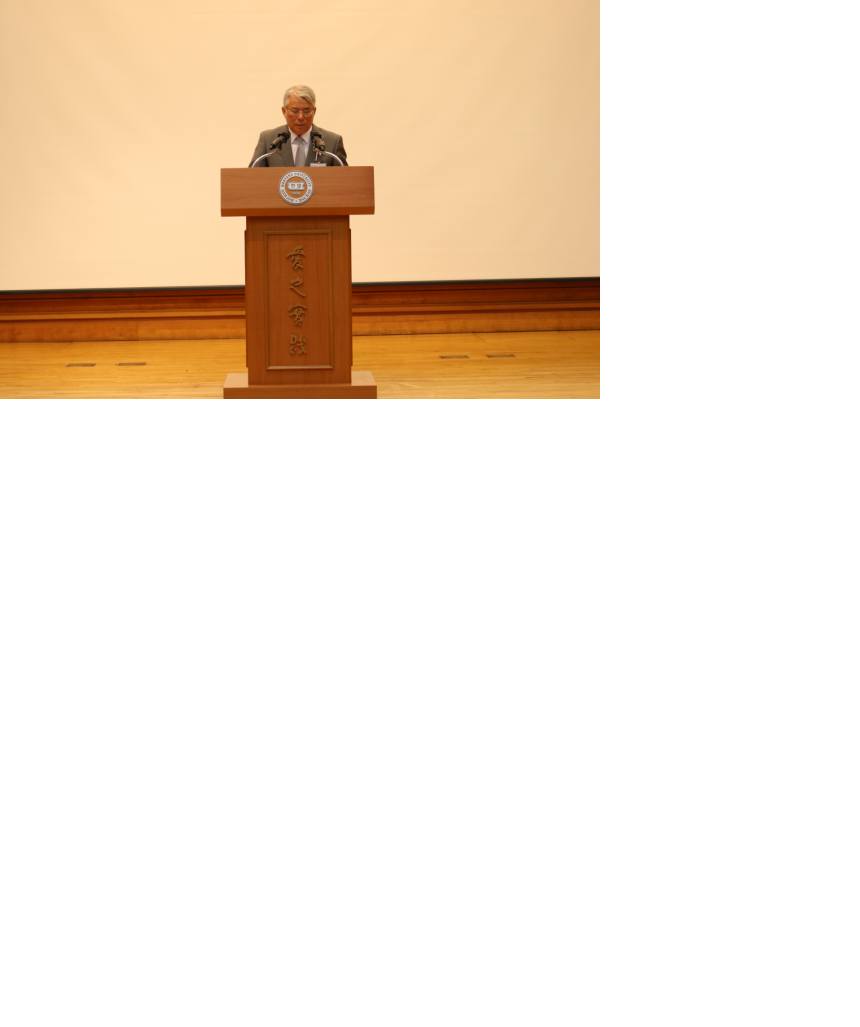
#include <cairo/cairo.h>
#include <math.h>
#include <stddef.h>

static cairo_t *cr;

static void rgb(unsigned color)
{
	cairo_set_source_rgb(cr, (color >> 16) / 255.0, (color >> 8 & 255) / 255.0, (color & 255) / 255.0);
}

static void image(const char *path, double x, double y, double w, double h)
{
	cairo_surface_t *image = cairo_image_surface_create_from_png(path);
	cairo_save(cr);
	cairo_set_source_surface(cr, image, x, y);
	cairo_rectangle(cr, x, y, w, h);
	cairo_fill(cr);
	cairo_restore(cr);
	cairo_surface_destroy(image);
}

int main(void) {
	cairo_surface_t *surface = cairo_image_surface_create(CAIRO_FORMAT_RGB24, 860, 1027);
	cr = cairo_create(surface);
	cairo_font_options_t *options = cairo_font_options_create();
	cairo_font_options_set_hint_metrics(options, CAIRO_HINT_METRICS_OFF);
	cairo_font_options_set_hint_style(options, CAIRO_HINT_STYLE_NONE);
	cairo_set_font_options(cr, options);
	cairo_set_miter_limit(cr, 4);
	rgb(0xffffff);
	cairo_paint(cr);
	image("img/1.png", 0, 0, 600, 399);
	cairo_surface_write_to_png(surface, "page.png");
	cairo_font_options_destroy(options);
	cairo_destroy(cr);
	cairo_surface_destroy(surface);
	return 0;
}
